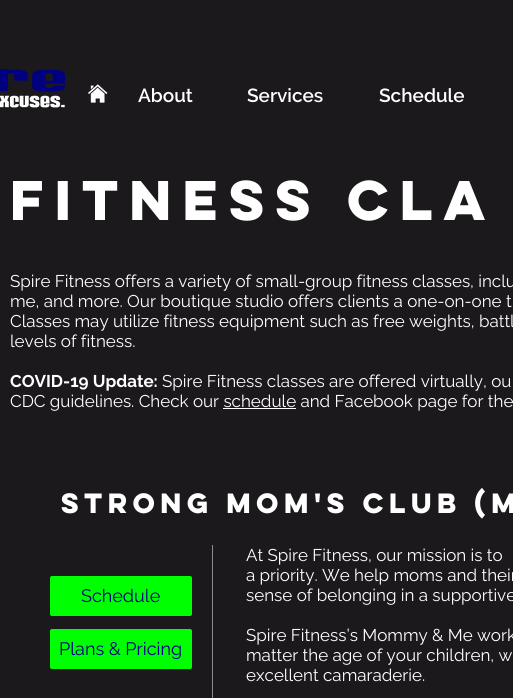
#include <cairo/cairo.h>
#include <math.h>
#include <stddef.h>

typedef struct { double x, y; const char *s; } line_t;
static cairo_t *cr;

static void rgb(unsigned color)
{
	cairo_set_source_rgb(cr, (color >> 16) / 255.0, (color >> 8 & 255) / 255.0, (color & 255) / 255.0);
}

static void rrect(double x, double y, double w, double h, double r)
{
	cairo_new_sub_path(cr);
	cairo_arc(cr, x + w - r, y + h - r, r, 0, M_PI / 2);
	cairo_arc(cr, x + r, y + h - r, r, M_PI / 2, M_PI);
	cairo_arc(cr, x + r, y + r, r, M_PI, 1.5 * M_PI);
	cairo_arc(cr, x + w - r, y + r, r, 1.5 * M_PI, 2 * M_PI);
	cairo_close_path(cr);
}

static void image(const char *path, double x, double y, double w, double h)
{
	cairo_surface_t *image = cairo_image_surface_create_from_png(path);
	cairo_save(cr);
	cairo_set_source_surface(cr, image, x, y);
	cairo_rectangle(cr, x, y, w, h);
	cairo_fill(cr);
	cairo_restore(cr);
	cairo_surface_destroy(image);
}

int main(void) {
	cairo_surface_t *surface = cairo_image_surface_create(CAIRO_FORMAT_RGB24, 513, 698);
	cr = cairo_create(surface);
	cairo_font_options_t *options = cairo_font_options_create();
	cairo_font_options_set_hint_metrics(options, CAIRO_HINT_METRICS_OFF);
	cairo_font_options_set_hint_style(options, CAIRO_HINT_STYLE_NONE);
	cairo_set_font_options(cr, options);
	cairo_set_miter_limit(cr, 4);
	rgb(0x1c191c);
	cairo_paint(cr);
	image("img/1.png", 0, 69, 65, 39);
	image("img/2.png", 88, 84, 20, 19);
	rgb(0xffffff);
	cairo_rectangle(cr, 223, 408, 73, 1);
	cairo_fill(cr);
	rgb(0x00ff00);
	rrect(50.5, 576.5, 141, 39, 1.5);
	cairo_fill_preserve(cr);
	cairo_set_line_width(cr, 1);
	cairo_stroke(cr);
	rgb(0x8e8c8e);
	cairo_rectangle(cr, 212, 545, 1, 153);
	cairo_fill(cr);
	rgb(0x00ff00);
	rrect(50.5, 629.5, 141, 39, 1.5);
	cairo_fill_preserve(cr);
	cairo_stroke(cr);
	cairo_select_font_face(cr, "Raleway SemiBold", CAIRO_FONT_SLANT_NORMAL, CAIRO_FONT_WEIGHT_NORMAL);
	cairo_set_font_size(cr, 19);
	rgb(0xffffff);
	{
		static const line_t items[] = {
			{138, 102, "About"},
			{247, 102, "Services"},
			{379, 102, "Schedule"},
		};
		for (size_t i = 0; i < sizeof items / sizeof *items; i++) {
			cairo_move_to(cr, items[i].x, items[i].y);
			cairo_show_text(cr, items[i].s);
		}
	}
	cairo_select_font_face(cr, "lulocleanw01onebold", CAIRO_FONT_SLANT_NORMAL, CAIRO_FONT_WEIGHT_BOLD);
	cairo_set_font_size(cr, 50);
	cairo_move_to(cr, 10, 220);
	cairo_show_text(cr, "Fitness Cla");
	cairo_select_font_face(cr, "Raleway", CAIRO_FONT_SLANT_NORMAL, CAIRO_FONT_WEIGHT_NORMAL);
	cairo_set_font_size(cr, 17);
	{
		static const line_t items[] = {
			{10, 287, "Spire Fitness offers a variety of small-group fitness classes, inclu"},
			{10, 307, "me, and more. Our boutique studio offers clients a one-on-one t"},
			{10, 327, "Classes may utilize fitness equipment such as free weights, battl"},
			{10, 347, "levels of fitness."},
		};
		for (size_t i = 0; i < sizeof items / sizeof *items; i++) {
			cairo_move_to(cr, items[i].x, items[i].y);
			cairo_show_text(cr, items[i].s);
		}
	}
	cairo_select_font_face(cr, "Raleway", CAIRO_FONT_SLANT_NORMAL, CAIRO_FONT_WEIGHT_BOLD);
	cairo_move_to(cr, 10, 387);
	cairo_show_text(cr, "COVID-19 Update:");
	cairo_select_font_face(cr, "Raleway", CAIRO_FONT_SLANT_NORMAL, CAIRO_FONT_WEIGHT_NORMAL);
	cairo_move_to(cr, 162, 387);
	cairo_show_text(cr, "Spire Fitness classes are offered virtually, ou");
	cairo_move_to(cr, 10, 407);
	cairo_show_text(cr, "CDC guidelines. Check our schedule and Facebook page for the");
	cairo_select_font_face(cr, "lulocleanw01onebold", CAIRO_FONT_SLANT_NORMAL, CAIRO_FONT_WEIGHT_BOLD);
	cairo_set_font_size(cr, 25);
	cairo_move_to(cr, 61, 513);
	cairo_show_text(cr, "Strong Mom's Club (m");
	cairo_select_font_face(cr, "Raleway", CAIRO_FONT_SLANT_NORMAL, CAIRO_FONT_WEIGHT_NORMAL);
	cairo_set_font_size(cr, 18);
	rgb(0x000080);
	cairo_move_to(cr, 81, 602);
	cairo_show_text(cr, "Schedule");
	cairo_set_font_size(cr, 17);
	rgb(0xffffff);
	{
		static const line_t items[] = {
			{246, 561, "At Spire Fitness, our mission is to"},
			{246, 581, "a priority. We help moms and their"},
			{246, 601, "sense of belonging in a supportive"},
			{246, 641, "Spire Fitness’s Mommy & Me work"},
			{246, 661, "matter the age of your children, w"},
			{246, 681, "excellent camaraderie."},
		};
		for (size_t i = 0; i < sizeof items / sizeof *items; i++) {
			cairo_move_to(cr, items[i].x, items[i].y);
			cairo_show_text(cr, items[i].s);
		}
	}
	cairo_set_font_size(cr, 18);
	rgb(0x000080);
	cairo_move_to(cr, 59, 655);
	cairo_show_text(cr, "Plans & Pricing");
	cairo_surface_write_to_png(surface, "page.png");
	cairo_font_options_destroy(options);
	cairo_destroy(cr);
	cairo_surface_destroy(surface);
	return 0;
}
